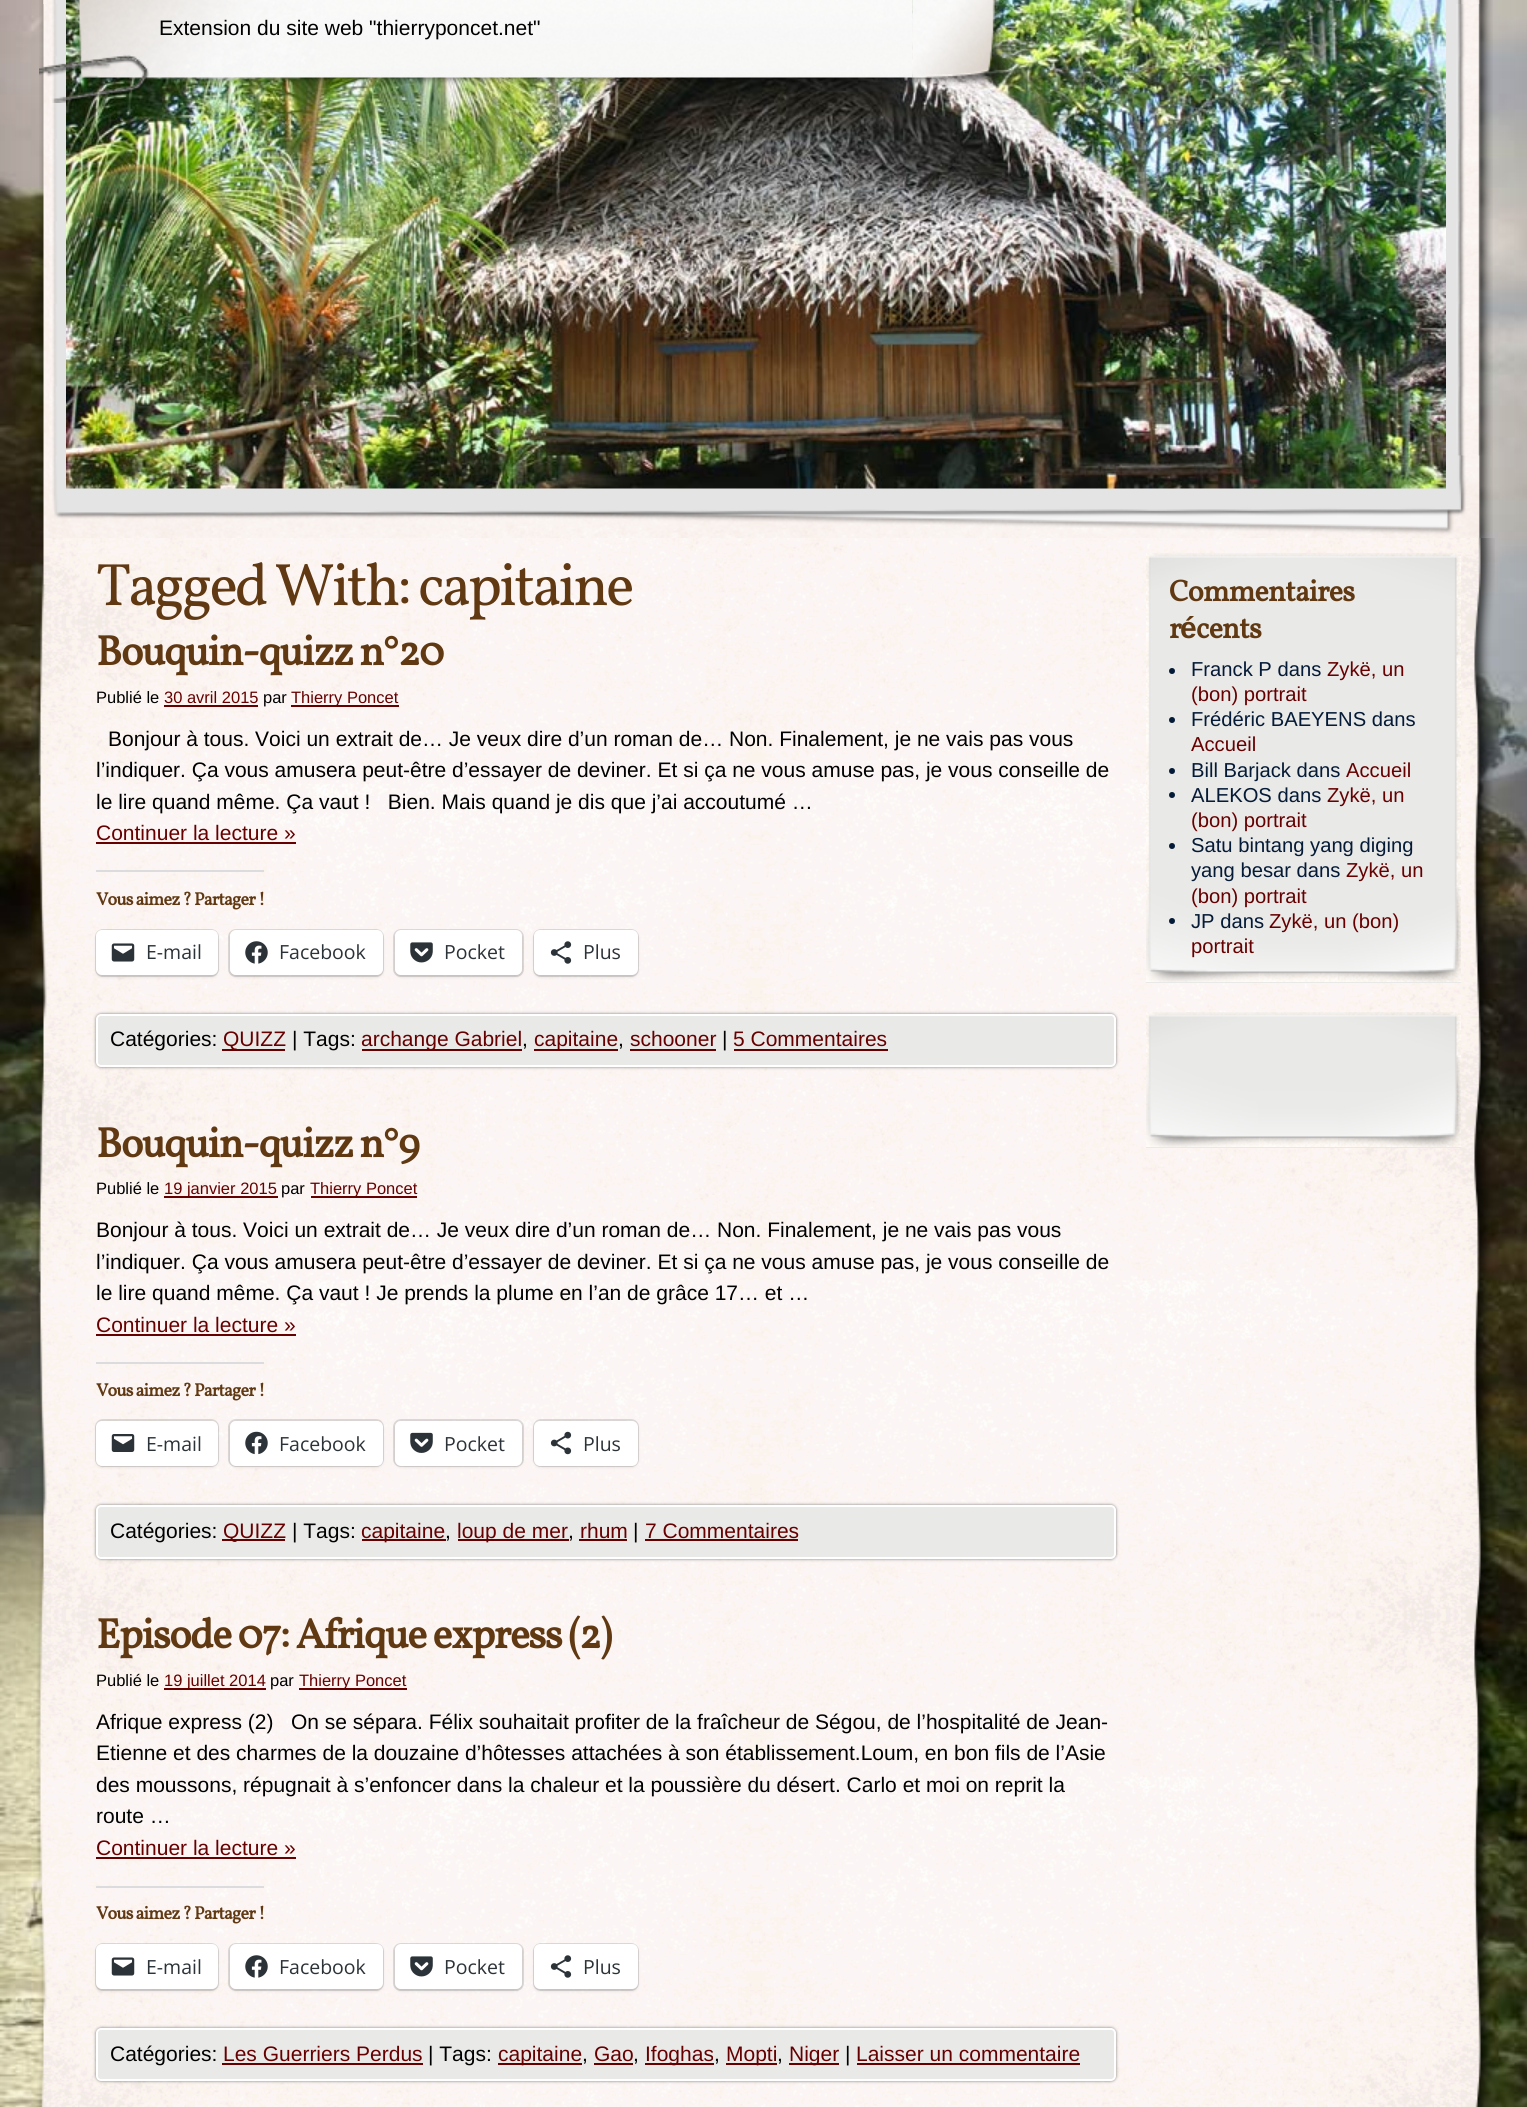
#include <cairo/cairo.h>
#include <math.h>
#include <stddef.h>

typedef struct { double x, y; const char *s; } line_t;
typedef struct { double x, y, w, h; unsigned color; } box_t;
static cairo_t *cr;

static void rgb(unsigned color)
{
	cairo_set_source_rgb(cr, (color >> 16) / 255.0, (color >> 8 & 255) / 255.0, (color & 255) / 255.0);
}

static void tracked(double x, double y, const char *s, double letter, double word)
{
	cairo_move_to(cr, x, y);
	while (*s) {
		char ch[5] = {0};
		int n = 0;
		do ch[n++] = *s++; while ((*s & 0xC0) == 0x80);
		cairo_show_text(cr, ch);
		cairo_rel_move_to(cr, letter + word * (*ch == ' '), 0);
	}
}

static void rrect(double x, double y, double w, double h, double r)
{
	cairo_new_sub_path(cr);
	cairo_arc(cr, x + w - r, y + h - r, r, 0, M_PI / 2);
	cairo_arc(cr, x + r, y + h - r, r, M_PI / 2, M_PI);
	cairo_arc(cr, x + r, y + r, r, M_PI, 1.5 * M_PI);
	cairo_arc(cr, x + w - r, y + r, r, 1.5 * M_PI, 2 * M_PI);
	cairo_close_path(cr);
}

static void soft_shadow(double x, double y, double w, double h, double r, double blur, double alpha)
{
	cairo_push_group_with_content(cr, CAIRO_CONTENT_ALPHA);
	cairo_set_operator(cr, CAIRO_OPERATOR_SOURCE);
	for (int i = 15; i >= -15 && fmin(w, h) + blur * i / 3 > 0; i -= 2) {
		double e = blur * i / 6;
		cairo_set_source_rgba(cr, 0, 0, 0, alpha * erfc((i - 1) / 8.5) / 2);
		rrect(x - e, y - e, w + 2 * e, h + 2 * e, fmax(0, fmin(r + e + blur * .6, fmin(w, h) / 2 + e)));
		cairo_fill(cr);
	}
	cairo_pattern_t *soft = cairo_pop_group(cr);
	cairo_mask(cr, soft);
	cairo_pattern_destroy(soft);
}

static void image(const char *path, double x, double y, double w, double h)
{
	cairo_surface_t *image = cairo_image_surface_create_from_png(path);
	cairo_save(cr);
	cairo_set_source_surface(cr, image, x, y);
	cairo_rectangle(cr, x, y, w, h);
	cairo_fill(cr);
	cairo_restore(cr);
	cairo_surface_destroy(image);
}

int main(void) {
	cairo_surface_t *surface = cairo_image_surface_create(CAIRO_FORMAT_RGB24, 1527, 2107);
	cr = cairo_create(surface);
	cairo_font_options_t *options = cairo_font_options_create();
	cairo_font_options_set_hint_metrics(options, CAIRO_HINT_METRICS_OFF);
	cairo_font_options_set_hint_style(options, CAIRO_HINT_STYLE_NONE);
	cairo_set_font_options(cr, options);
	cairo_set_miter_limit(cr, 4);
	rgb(0xffffff);
	cairo_paint(cr);
	image("img/1.png", 0, 0, 1527, 2107);
	image("img/2.png", 0, 0, 1527, 2107);
	image("img/3.png", 39, 0, 1454, 538);
	image("img/4.png", 43, 0, 1437, 4);
	image("img/5.png", 48, 455, 1432, 83);
	image("img/6.png", 66, 0, 1380, 489);
	image("img/7.png", 911, 0, 101, 86);
	image("img/8.png", 39, 0, 873, 103);
	image("img/9.png", 36, 538, 1459, 1569);
	{
		static const box_t items[] = {
			{164, 705, 94, 2, 0x660000},
			{291, 705, 108, 2, 0x660000},
			{96, 842, 200, 2, 0x660000},
			{96, 870, 168, 2, 0xdcdcde},
		};
		for (size_t i = 0; i < sizeof items / sizeof *items; i++) {
			rgb(items[i].color);
			cairo_rectangle(cr, items[i].x, items[i].y, items[i].w, items[i].h);
			cairo_fill(cr);
		}
	}
	rrect(96, 930, 122, 46, 7);
	cairo_set_source_rgba(cr, 0, 0, 0, 0.12);
	cairo_stroke(cr);
	rgb(0x000000);
	soft_shadow(96, 932, 122, 45, 6, 1.5, 0.12);
	rgb(0xffffff);
	rrect(96, 930, 122, 45, 6);
	cairo_fill(cr);
	image("img/10.png", 111, 943, 24, 19);
	rrect(229, 930, 154, 46, 7);
	cairo_set_source_rgba(cr, 0, 0, 0, 0.12);
	cairo_stroke(cr);
	rgb(0x000000);
	soft_shadow(230, 932, 153, 45, 6, 1.5, 0.12);
	rgb(0xffffff);
	rrect(230, 930, 153, 45, 6);
	cairo_fill(cr);
	image("img/11.png", 245, 941, 23, 23);
	rrect(394, 930, 129, 46, 7);
	cairo_set_source_rgba(cr, 0, 0, 0, 0.12);
	cairo_stroke(cr);
	rgb(0x000000);
	soft_shadow(395, 932, 127, 45, 6, 1.5, 0.12);
	rgb(0xffffff);
	rrect(395, 930, 127, 45, 6);
	cairo_fill(cr);
	image("img/12.png", 410, 942, 23, 21);
	rrect(534, 930, 104, 46, 7);
	cairo_set_source_rgba(cr, 0, 0, 0, 0.12);
	cairo_stroke(cr);
	rgb(0x000000);
	soft_shadow(534, 932, 104, 45, 6, 1.5, 0.12);
	rgb(0xffffff);
	rrect(534, 930, 104, 45, 6);
	cairo_fill(cr);
	image("img/13.png", 550, 941, 22, 23);
	rgb(0x000000);
	soft_shadow(96, 1014, 1020, 53, 5, 1.5, 0.5);
	rgb(0xe9e9e8);
	rrect(97, 1015, 1018, 51, 4);
	cairo_fill_preserve(cr);
	rgb(0xffffff);
	cairo_stroke(cr);
	{
		static const box_t items[] = {
			{222, 1049, 63, 2, 0x660000},
			{362, 1049, 160, 2, 0x660000},
			{534, 1049, 84, 2, 0x660000},
			{630, 1049, 86, 2, 0x660000},
			{734, 1049, 154, 2, 0x660000},
			{164, 1196, 114, 2, 0x660000},
			{311, 1196, 106, 2, 0x660000},
			{96, 1334, 200, 2, 0x660000},
			{96, 1362, 168, 2, 0xdcdcde},
		};
		for (size_t i = 0; i < sizeof items / sizeof *items; i++) {
			rgb(items[i].color);
			cairo_rectangle(cr, items[i].x, items[i].y, items[i].w, items[i].h);
			cairo_fill(cr);
		}
	}
	rrect(96, 1420, 122, 46, 7);
	cairo_set_source_rgba(cr, 0, 0, 0, 0.12);
	cairo_stroke(cr);
	rgb(0x000000);
	soft_shadow(96, 1422, 122, 45, 6, 1.5, 0.12);
	rgb(0xffffff);
	rrect(96, 1421, 122, 45, 6);
	cairo_fill(cr);
	image("img/14.png", 111, 1434, 24, 18);
	rrect(229, 1420, 154, 46, 7);
	cairo_set_source_rgba(cr, 0, 0, 0, 0.12);
	cairo_stroke(cr);
	rgb(0x000000);
	soft_shadow(230, 1422, 153, 45, 6, 1.5, 0.12);
	rgb(0xffffff);
	rrect(230, 1421, 153, 45, 6);
	cairo_fill(cr);
	image("img/15.png", 245, 1431, 23, 24);
	rrect(394, 1420, 129, 46, 7);
	cairo_set_source_rgba(cr, 0, 0, 0, 0.12);
	cairo_stroke(cr);
	rgb(0x000000);
	soft_shadow(395, 1422, 127, 45, 6, 1.5, 0.12);
	rgb(0xffffff);
	rrect(395, 1421, 127, 45, 6);
	cairo_fill(cr);
	image("img/16.png", 410, 1432, 23, 21);
	rrect(534, 1420, 104, 46, 7);
	cairo_set_source_rgba(cr, 0, 0, 0, 0.12);
	cairo_stroke(cr);
	rgb(0x000000);
	soft_shadow(534, 1422, 104, 45, 6, 1.5, 0.12);
	rgb(0xffffff);
	rrect(534, 1421, 104, 45, 6);
	cairo_fill(cr);
	image("img/17.png", 550, 1431, 22, 24);
	rgb(0x000000);
	soft_shadow(96, 1505, 1020, 54, 5, 1.5, 0.5);
	rgb(0xe9e9e8);
	rrect(97, 1506, 1018, 52, 4);
	cairo_fill_preserve(cr);
	rgb(0xffffff);
	cairo_stroke(cr);
	{
		static const box_t items[] = {
			{222, 1539, 63, 2, 0x660000},
			{362, 1539, 84, 2, 0x660000},
			{458, 1539, 111, 2, 0x660000},
			{579, 1539, 48, 2, 0x660000},
			{645, 1539, 153, 2, 0x660000},
			{164, 1688, 102, 2, 0x660000},
			{299, 1688, 108, 2, 0x660000},
			{96, 1857, 200, 2, 0x660000},
			{96, 1886, 168, 2, 0xdcdcde},
		};
		for (size_t i = 0; i < sizeof items / sizeof *items; i++) {
			rgb(items[i].color);
			cairo_rectangle(cr, items[i].x, items[i].y, items[i].w, items[i].h);
			cairo_fill(cr);
		}
	}
	rrect(96, 1944, 122, 46, 7);
	cairo_set_source_rgba(cr, 0, 0, 0, 0.12);
	cairo_stroke(cr);
	rgb(0x000000);
	soft_shadow(96, 1946, 122, 45, 6, 1.5, 0.12);
	rgb(0xffffff);
	rrect(96, 1944, 122, 45, 6);
	cairo_fill(cr);
	image("img/10.png", 111, 1957, 24, 19);
	rrect(229, 1944, 154, 46, 7);
	cairo_set_source_rgba(cr, 0, 0, 0, 0.12);
	cairo_stroke(cr);
	rgb(0x000000);
	soft_shadow(230, 1946, 153, 45, 6, 1.5, 0.12);
	rgb(0xffffff);
	rrect(230, 1944, 153, 45, 6);
	cairo_fill(cr);
	image("img/11.png", 245, 1955, 23, 23);
	rrect(394, 1944, 129, 46, 7);
	cairo_set_source_rgba(cr, 0, 0, 0, 0.12);
	cairo_stroke(cr);
	rgb(0x000000);
	soft_shadow(395, 1946, 127, 45, 6, 1.5, 0.12);
	rgb(0xffffff);
	rrect(395, 1944, 127, 45, 6);
	cairo_fill(cr);
	image("img/12.png", 410, 1956, 23, 21);
	rrect(534, 1944, 104, 46, 7);
	cairo_set_source_rgba(cr, 0, 0, 0, 0.12);
	cairo_stroke(cr);
	rgb(0x000000);
	soft_shadow(534, 1946, 104, 45, 6, 1.5, 0.12);
	rgb(0xffffff);
	rrect(534, 1944, 104, 45, 6);
	cairo_fill(cr);
	image("img/13.png", 550, 1955, 22, 23);
	rgb(0x000000);
	soft_shadow(96, 2028, 1020, 53, 5, 1.5, 0.5);
	rgb(0xe9e9e8);
	rrect(97, 2029, 1018, 51, 4);
	cairo_fill_preserve(cr);
	rgb(0xffffff);
	cairo_stroke(cr);
	{
		static const box_t items[] = {
			{222, 2063, 201, 2, 0x660000},
			{498, 2063, 84, 2, 0x660000},
			{594, 2063, 39, 2, 0x660000},
			{645, 2063, 69, 2, 0x660000},
			{726, 2063, 51, 2, 0x660000},
			{789, 2063, 50, 2, 0x660000},
			{857, 2063, 223, 2, 0x660000},
			{1146, 599, 315, 384, 0xe9e9e8},
		};
		for (size_t i = 0; i < sizeof items / sizeof *items; i++) {
			rgb(items[i].color);
			cairo_rectangle(cr, items[i].x, items[i].y, items[i].w, items[i].h);
			cairo_fill(cr);
		}
	}
	image("img/18.png", 1146, 553, 315, 429);
	rgb(0x041a36);
	cairo_arc(cr, 1172, 671, 3, 0, 2 * M_PI);
	cairo_fill(cr);
	cairo_arc(cr, 1172, 720, 3, 0, 2 * M_PI);
	cairo_fill(cr);
	cairo_arc(cr, 1172, 771, 3, 0, 2 * M_PI);
	cairo_fill(cr);
	cairo_arc(cr, 1172, 795, 3, 0, 2 * M_PI);
	cairo_fill(cr);
	cairo_arc(cr, 1172, 846, 3, 0, 2 * M_PI);
	cairo_fill(cr);
	cairo_arc(cr, 1172, 921, 3, 0, 2 * M_PI);
	cairo_fill(cr);
	rgb(0xe9e9e8);
	cairo_rectangle(cr, 1146, 1147, 315, 1);
	cairo_fill(cr);
	image("img/19.png", 1146, 1012, 315, 135);
	cairo_select_font_face(cr, "Liberation Sans", CAIRO_FONT_SLANT_NORMAL, CAIRO_FONT_WEIGHT_NORMAL);
	cairo_set_font_size(cr, 21);
	rgb(0x000000);
	cairo_move_to(cr, 159, 35);
	cairo_show_text(cr, "Extension du site web \"thierryponcet.net\"");
	cairo_select_font_face(cr, "Vollkorn", CAIRO_FONT_SLANT_NORMAL, CAIRO_FONT_WEIGHT_NORMAL);
	cairo_set_font_size(cr, 60);
	rgb(0x603913);
	tracked(96, 605, "Tagged With: capitaine", -3, 0);
	cairo_select_font_face(cr, "Vollkorn", CAIRO_FONT_SLANT_NORMAL, CAIRO_FONT_WEIGHT_BOLD);
	cairo_set_font_size(cr, 42);
	tracked(96, 665, "Bouquin-quizz n", -1.5, 0);
	cairo_select_font_face(cr, "Liberation Sans", CAIRO_FONT_SLANT_NORMAL, CAIRO_FONT_WEIGHT_BOLD);
	tracked(383, 665, "°", -1.5, 0);
	cairo_select_font_face(cr, "Vollkorn", CAIRO_FONT_SLANT_NORMAL, CAIRO_FONT_WEIGHT_BOLD);
	tracked(398, 665, "20", -1.5, 0);
	cairo_select_font_face(cr, "Liberation Sans", CAIRO_FONT_SLANT_NORMAL, CAIRO_FONT_WEIGHT_NORMAL);
	cairo_set_font_size(cr, 16.5);
	rgb(0x000000);
	cairo_move_to(cr, 96, 703);
	cairo_show_text(cr, "Publié le");
	rgb(0x660000);
	cairo_move_to(cr, 164, 703);
	cairo_show_text(cr, "30 avril 2015");
	rgb(0x000000);
	cairo_move_to(cr, 263, 703);
	cairo_show_text(cr, "par");
	rgb(0x660000);
	cairo_move_to(cr, 291, 703);
	cairo_show_text(cr, "Thierry Poncet");
	cairo_set_font_size(cr, 21);
	rgb(0x000000);
	{
		static const line_t items[] = {
			{108, 746, "Bonjour à tous. Voici un extrait de… Je veux dire d’un roman de… Non. Finalement, je ne vais pas vous"},
			{96, 777, "l’indiquer. Ça vous amusera peut-être d’essayer de deviner. Et si ça ne vous amuse pas, je vous conseille de"},
			{96, 809, "le lire quand même. Ça vaut !   Bien. Mais quand je dis que j’ai accoutumé …"},
		};
		for (size_t i = 0; i < sizeof items / sizeof *items; i++) {
			cairo_move_to(cr, items[i].x, items[i].y);
			cairo_show_text(cr, items[i].s);
		}
	}
	rgb(0x660000);
	cairo_move_to(cr, 96, 840);
	cairo_show_text(cr, "Continuer la lecture »");
	cairo_select_font_face(cr, "Vollkorn", CAIRO_FONT_SLANT_NORMAL, CAIRO_FONT_WEIGHT_BOLD);
	cairo_set_font_size(cr, 18);
	rgb(0x603913);
	tracked(96, 905, "Vous aimez ? Partager !", -0.75, 0);
	cairo_select_font_face(cr, "Open Sans", CAIRO_FONT_SLANT_NORMAL, CAIRO_FONT_WEIGHT_NORMAL);
	cairo_set_font_size(cr, 19.5);
	rgb(0x2c3338);
	{
		static const line_t items[] = {
			{146, 959, "E-mail"},
			{279, 959, "Facebook"},
			{444, 959, "Pocket"},
			{583, 959, "Plus"},
		};
		for (size_t i = 0; i < sizeof items / sizeof *items; i++) {
			cairo_move_to(cr, items[i].x, items[i].y);
			cairo_show_text(cr, items[i].s);
		}
	}
	cairo_select_font_face(cr, "Liberation Sans", CAIRO_FONT_SLANT_NORMAL, CAIRO_FONT_WEIGHT_NORMAL);
	cairo_set_font_size(cr, 21);
	rgb(0x000000);
	cairo_move_to(cr, 110, 1046);
	cairo_show_text(cr, "Catégories:");
	rgb(0x660000);
	cairo_move_to(cr, 223, 1046);
	cairo_show_text(cr, "QUIZZ");
	rgb(0x000000);
	cairo_move_to(cr, 292, 1046);
	cairo_show_text(cr, "| Tags:");
	rgb(0x660000);
	cairo_move_to(cr, 361, 1046);
	cairo_show_text(cr, "archange Gabriel");
	rgb(0x000000);
	cairo_move_to(cr, 522, 1046);
	cairo_show_text(cr, ",");
	rgb(0x660000);
	cairo_move_to(cr, 534, 1046);
	cairo_show_text(cr, "capitaine");
	rgb(0x000000);
	cairo_move_to(cr, 618, 1046);
	cairo_show_text(cr, ",");
	rgb(0x660000);
	cairo_move_to(cr, 630, 1046);
	cairo_show_text(cr, "schooner");
	rgb(0x000000);
	cairo_move_to(cr, 722, 1046);
	cairo_show_text(cr, "|");
	rgb(0x660000);
	cairo_move_to(cr, 733, 1046);
	cairo_show_text(cr, "5 Commentaires");
	cairo_select_font_face(cr, "Vollkorn", CAIRO_FONT_SLANT_NORMAL, CAIRO_FONT_WEIGHT_BOLD);
	cairo_set_font_size(cr, 42);
	rgb(0x603913);
	tracked(96, 1157, "Bouquin-quizz n", -1.5, 0);
	cairo_select_font_face(cr, "Liberation Sans", CAIRO_FONT_SLANT_NORMAL, CAIRO_FONT_WEIGHT_BOLD);
	tracked(383, 1157, "°", -1.5, 0);
	cairo_select_font_face(cr, "Vollkorn", CAIRO_FONT_SLANT_NORMAL, CAIRO_FONT_WEIGHT_BOLD);
	tracked(398, 1157, "9", -1.5, 0);
	cairo_select_font_face(cr, "Liberation Sans", CAIRO_FONT_SLANT_NORMAL, CAIRO_FONT_WEIGHT_NORMAL);
	cairo_set_font_size(cr, 16.5);
	rgb(0x000000);
	cairo_move_to(cr, 96, 1194);
	cairo_show_text(cr, "Publié le");
	rgb(0x660000);
	cairo_move_to(cr, 164, 1194);
	cairo_show_text(cr, "19 janvier 2015");
	rgb(0x000000);
	cairo_move_to(cr, 281, 1194);
	cairo_show_text(cr, "par");
	rgb(0x660000);
	cairo_move_to(cr, 310, 1194);
	cairo_show_text(cr, "Thierry Poncet");
	cairo_set_font_size(cr, 21);
	rgb(0x000000);
	{
		static const line_t items[] = {
			{96, 1237, "Bonjour à tous. Voici un extrait de… Je veux dire d’un roman de… Non. Finalement, je ne vais pas vous"},
			{96, 1269, "l’indiquer. Ça vous amusera peut-être d’essayer de deviner. Et si ça ne vous amuse pas, je vous conseille de"},
			{96, 1300, "le lire quand même. Ça vaut ! Je prends la plume en l’an de grâce 17… et …"},
		};
		for (size_t i = 0; i < sizeof items / sizeof *items; i++) {
			cairo_move_to(cr, items[i].x, items[i].y);
			cairo_show_text(cr, items[i].s);
		}
	}
	rgb(0x660000);
	cairo_move_to(cr, 96, 1332);
	cairo_show_text(cr, "Continuer la lecture »");
	cairo_select_font_face(cr, "Vollkorn", CAIRO_FONT_SLANT_NORMAL, CAIRO_FONT_WEIGHT_BOLD);
	cairo_set_font_size(cr, 18);
	rgb(0x603913);
	tracked(96, 1396, "Vous aimez ? Partager !", -0.75, 0);
	cairo_select_font_face(cr, "Open Sans", CAIRO_FONT_SLANT_NORMAL, CAIRO_FONT_WEIGHT_NORMAL);
	cairo_set_font_size(cr, 19.5);
	rgb(0x2c3338);
	{
		static const line_t items[] = {
			{146, 1451, "E-mail"},
			{279, 1451, "Facebook"},
			{444, 1451, "Pocket"},
			{583, 1451, "Plus"},
		};
		for (size_t i = 0; i < sizeof items / sizeof *items; i++) {
			cairo_move_to(cr, items[i].x, items[i].y);
			cairo_show_text(cr, items[i].s);
		}
	}
	cairo_select_font_face(cr, "Liberation Sans", CAIRO_FONT_SLANT_NORMAL, CAIRO_FONT_WEIGHT_NORMAL);
	cairo_set_font_size(cr, 21);
	rgb(0x000000);
	cairo_move_to(cr, 110, 1538);
	cairo_show_text(cr, "Catégories:");
	rgb(0x660000);
	cairo_move_to(cr, 223, 1538);
	cairo_show_text(cr, "QUIZZ");
	rgb(0x000000);
	cairo_move_to(cr, 292, 1538);
	cairo_show_text(cr, "| Tags:");
	rgb(0x660000);
	cairo_move_to(cr, 361, 1538);
	cairo_show_text(cr, "capitaine");
	rgb(0x000000);
	cairo_move_to(cr, 445, 1538);
	cairo_show_text(cr, ",");
	rgb(0x660000);
	cairo_move_to(cr, 457, 1538);
	cairo_show_text(cr, "loup de mer");
	rgb(0x000000);
	cairo_move_to(cr, 568, 1538);
	cairo_show_text(cr, ",");
	rgb(0x660000);
	cairo_move_to(cr, 580, 1538);
	cairo_show_text(cr, "rhum");
	rgb(0x000000);
	cairo_move_to(cr, 633, 1538);
	cairo_show_text(cr, "|");
	rgb(0x660000);
	cairo_move_to(cr, 645, 1538);
	cairo_show_text(cr, "7 Commentaires");
	cairo_select_font_face(cr, "Vollkorn", CAIRO_FONT_SLANT_NORMAL, CAIRO_FONT_WEIGHT_BOLD);
	cairo_set_font_size(cr, 42);
	rgb(0x603913);
	tracked(96, 1648, "Episode 07: Afrique express (2)", -1.5, 0);
	cairo_select_font_face(cr, "Liberation Sans", CAIRO_FONT_SLANT_NORMAL, CAIRO_FONT_WEIGHT_NORMAL);
	cairo_set_font_size(cr, 16.5);
	rgb(0x000000);
	cairo_move_to(cr, 96, 1686);
	cairo_show_text(cr, "Publié le");
	rgb(0x660000);
	cairo_move_to(cr, 164, 1686);
	cairo_show_text(cr, "19 juillet 2014");
	rgb(0x000000);
	cairo_move_to(cr, 270, 1686);
	cairo_show_text(cr, "par");
	rgb(0x660000);
	cairo_move_to(cr, 299, 1686);
	cairo_show_text(cr, "Thierry Poncet");
	cairo_set_font_size(cr, 21);
	rgb(0x000000);
	{
		static const line_t items[] = {
			{96, 1729, "Afrique express (2)   On se sépara. Félix souhaitait profiter de la fraîcheur de Ségou, de l’hospitalité de Jean-"},
			{96, 1760, "Etienne et des charmes de la douzaine d’hôtesses attachées à son établissement.Loum, en bon fils de l’Asie"},
			{96, 1792, "des moussons, répugnait à s’enfoncer dans la chaleur et la poussière du désert. Carlo et moi on reprit la"},
			{96, 1823, "route …"},
		};
		for (size_t i = 0; i < sizeof items / sizeof *items; i++) {
			cairo_move_to(cr, items[i].x, items[i].y);
			cairo_show_text(cr, items[i].s);
		}
	}
	rgb(0x660000);
	cairo_move_to(cr, 96, 1855);
	cairo_show_text(cr, "Continuer la lecture »");
	cairo_select_font_face(cr, "Vollkorn", CAIRO_FONT_SLANT_NORMAL, CAIRO_FONT_WEIGHT_BOLD);
	cairo_set_font_size(cr, 18);
	rgb(0x603913);
	tracked(96, 1919, "Vous aimez ? Partager !", -0.75, 0);
	cairo_select_font_face(cr, "Open Sans", CAIRO_FONT_SLANT_NORMAL, CAIRO_FONT_WEIGHT_NORMAL);
	cairo_set_font_size(cr, 19.5);
	rgb(0x2c3338);
	{
		static const line_t items[] = {
			{146, 1974, "E-mail"},
			{279, 1974, "Facebook"},
			{444, 1974, "Pocket"},
			{583, 1974, "Plus"},
		};
		for (size_t i = 0; i < sizeof items / sizeof *items; i++) {
			cairo_move_to(cr, items[i].x, items[i].y);
			cairo_show_text(cr, items[i].s);
		}
	}
	cairo_select_font_face(cr, "Liberation Sans", CAIRO_FONT_SLANT_NORMAL, CAIRO_FONT_WEIGHT_NORMAL);
	cairo_set_font_size(cr, 21);
	rgb(0x000000);
	cairo_move_to(cr, 110, 2061);
	cairo_show_text(cr, "Catégories:");
	rgb(0x660000);
	cairo_move_to(cr, 223, 2061);
	cairo_show_text(cr, "Les Guerriers Perdus");
	rgb(0x000000);
	cairo_move_to(cr, 428, 2061);
	cairo_show_text(cr, "| Tags:");
	rgb(0x660000);
	cairo_move_to(cr, 498, 2061);
	cairo_show_text(cr, "capitaine");
	rgb(0x000000);
	cairo_move_to(cr, 582, 2061);
	cairo_show_text(cr, ",");
	rgb(0x660000);
	cairo_move_to(cr, 594, 2061);
	cairo_show_text(cr, "Gao");
	rgb(0x000000);
	cairo_move_to(cr, 633, 2061);
	cairo_show_text(cr, ",");
	rgb(0x660000);
	cairo_move_to(cr, 645, 2061);
	cairo_show_text(cr, "Ifoghas");
	rgb(0x000000);
	cairo_move_to(cr, 714, 2061);
	cairo_show_text(cr, ",");
	rgb(0x660000);
	cairo_move_to(cr, 726, 2061);
	cairo_show_text(cr, "Mopti");
	rgb(0x000000);
	cairo_move_to(cr, 777, 2061);
	cairo_show_text(cr, ",");
	rgb(0x660000);
	cairo_move_to(cr, 789, 2061);
	cairo_show_text(cr, "Niger");
	rgb(0x000000);
	cairo_move_to(cr, 845, 2061);
	cairo_show_text(cr, "|");
	rgb(0x660000);
	cairo_move_to(cr, 856, 2061);
	cairo_show_text(cr, "Laisser un commentaire");
	cairo_select_font_face(cr, "Vollkorn", CAIRO_FONT_SLANT_NORMAL, CAIRO_FONT_WEIGHT_BOLD);
	cairo_set_font_size(cr, 30);
	rgb(0x603913);
	tracked(1169, 601, "Commentaires", -0.75, 0);
	tracked(1169, 638, "r", -0.75, 0);
	cairo_select_font_face(cr, "Liberation Sans", CAIRO_FONT_SLANT_NORMAL, CAIRO_FONT_WEIGHT_BOLD);
	tracked(1180, 638, "é", -0.75, 0);
	cairo_select_font_face(cr, "Vollkorn", CAIRO_FONT_SLANT_NORMAL, CAIRO_FONT_WEIGHT_BOLD);
	tracked(1196, 638, "cents", -0.75, 0);
	cairo_select_font_face(cr, "Liberation Sans", CAIRO_FONT_SLANT_NORMAL, CAIRO_FONT_WEIGHT_NORMAL);
	cairo_set_font_size(cr, 20.2);
	rgb(0x041a36);
	cairo_move_to(cr, 1191, 676);
	cairo_show_text(cr, "Franck P dans");
	rgb(0x660000);
	cairo_move_to(cr, 1327, 676);
	cairo_show_text(cr, "Zykë, un");
	cairo_move_to(cr, 1191, 701);
	cairo_show_text(cr, "(bon) portrait");
	rgb(0x041a36);
	cairo_move_to(cr, 1191, 726);
	cairo_show_text(cr, "Frédéric BAEYENS dans");
	rgb(0x660000);
	cairo_move_to(cr, 1191, 751);
	cairo_show_text(cr, "Accueil");
	rgb(0x041a36);
	cairo_move_to(cr, 1191, 777);
	cairo_show_text(cr, "Bill Barjack dans");
	rgb(0x660000);
	cairo_move_to(cr, 1346, 777);
	cairo_show_text(cr, "Accueil");
	rgb(0x041a36);
	cairo_move_to(cr, 1191, 802);
	cairo_show_text(cr, "ALEKOS dans");
	rgb(0x660000);
	cairo_move_to(cr, 1327, 802);
	cairo_show_text(cr, "Zykë, un");
	cairo_move_to(cr, 1191, 827);
	cairo_show_text(cr, "(bon) portrait");
	rgb(0x041a36);
	cairo_move_to(cr, 1191, 852);
	cairo_show_text(cr, "Satu bintang yang diging");
	cairo_move_to(cr, 1191, 877);
	cairo_show_text(cr, "yang besar dans");
	rgb(0x660000);
	cairo_move_to(cr, 1346, 877);
	cairo_show_text(cr, "Zykë, un");
	cairo_move_to(cr, 1191, 903);
	cairo_show_text(cr, "(bon) portrait");
	rgb(0x041a36);
	cairo_move_to(cr, 1191, 928);
	cairo_show_text(cr, "JP dans");
	rgb(0x660000);
	cairo_move_to(cr, 1269, 928);
	cairo_show_text(cr, "Zykë, un (bon)");
	cairo_move_to(cr, 1191, 953);
	cairo_show_text(cr, "portrait");
	cairo_surface_write_to_png(surface, "page.png");
	cairo_font_options_destroy(options);
	cairo_destroy(cr);
	cairo_surface_destroy(surface);
	return 0;
}
